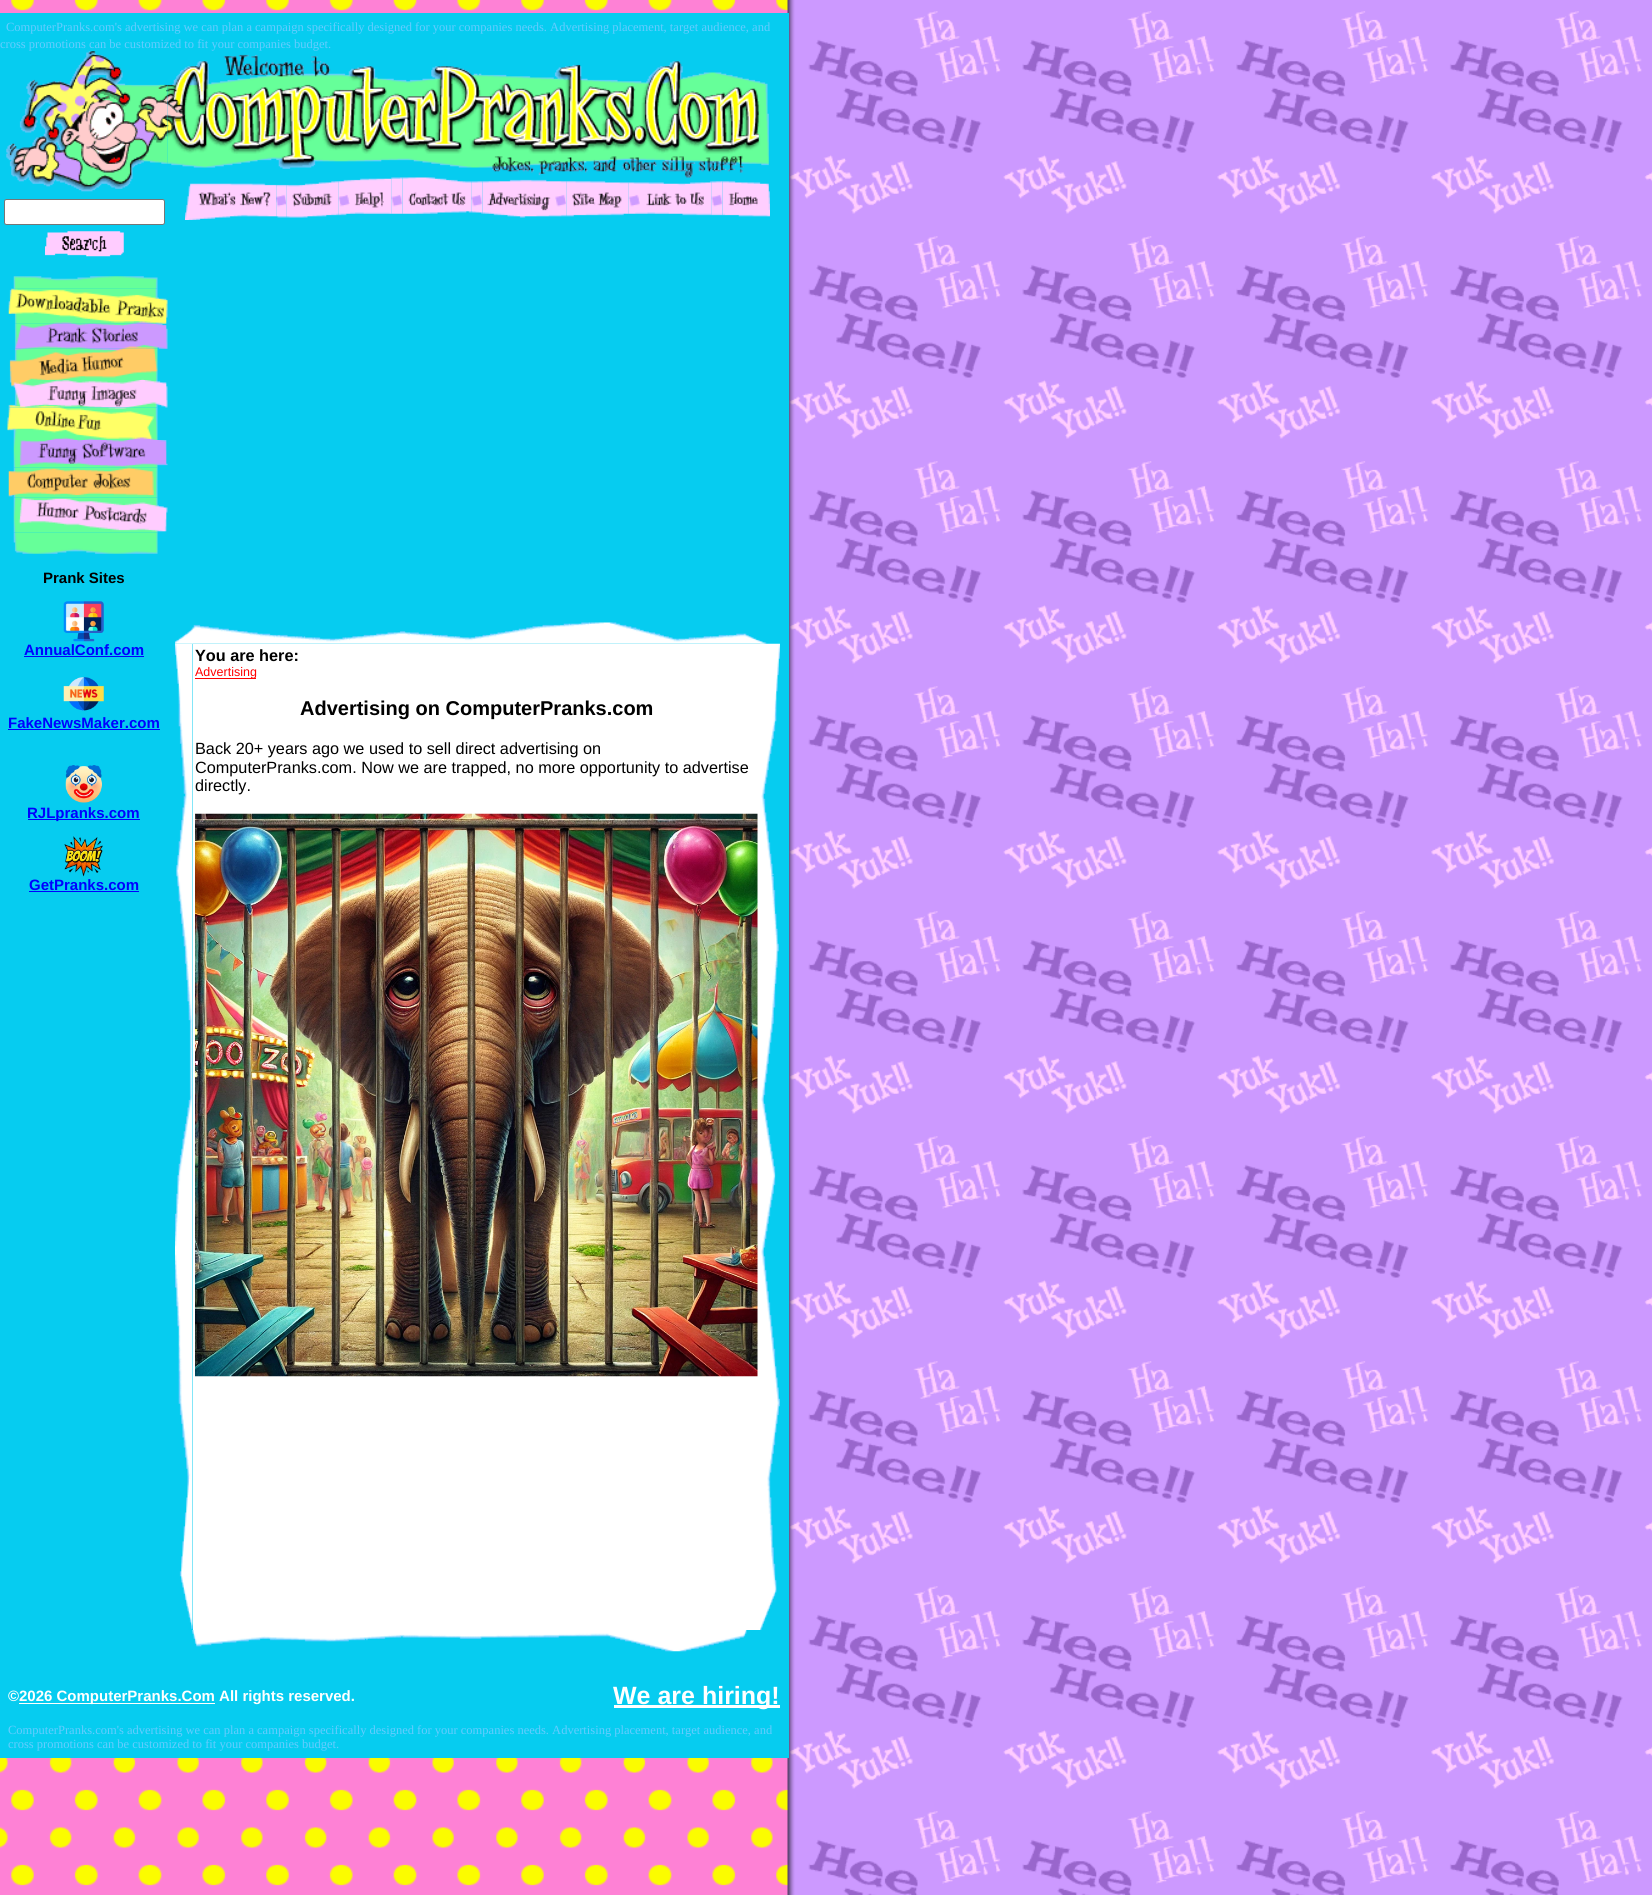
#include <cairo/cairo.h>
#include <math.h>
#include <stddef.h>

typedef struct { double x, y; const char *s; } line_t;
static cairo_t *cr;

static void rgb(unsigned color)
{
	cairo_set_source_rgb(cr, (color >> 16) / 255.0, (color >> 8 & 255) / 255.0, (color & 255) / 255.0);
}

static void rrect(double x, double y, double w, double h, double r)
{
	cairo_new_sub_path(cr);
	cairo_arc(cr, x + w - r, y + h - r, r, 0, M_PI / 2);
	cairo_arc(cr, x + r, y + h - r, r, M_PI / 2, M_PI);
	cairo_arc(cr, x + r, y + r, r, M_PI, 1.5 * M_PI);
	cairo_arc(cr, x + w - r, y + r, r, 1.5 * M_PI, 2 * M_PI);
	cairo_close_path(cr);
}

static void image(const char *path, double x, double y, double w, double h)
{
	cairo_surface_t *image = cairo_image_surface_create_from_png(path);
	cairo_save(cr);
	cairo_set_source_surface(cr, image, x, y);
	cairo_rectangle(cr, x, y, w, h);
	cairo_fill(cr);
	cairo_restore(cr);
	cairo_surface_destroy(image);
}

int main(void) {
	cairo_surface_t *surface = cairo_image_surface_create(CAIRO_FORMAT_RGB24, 1652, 1895);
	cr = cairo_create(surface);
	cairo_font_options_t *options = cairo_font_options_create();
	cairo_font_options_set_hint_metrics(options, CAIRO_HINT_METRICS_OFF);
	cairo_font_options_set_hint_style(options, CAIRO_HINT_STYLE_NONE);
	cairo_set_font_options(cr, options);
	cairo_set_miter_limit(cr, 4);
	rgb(0xffffff);
	cairo_paint(cr);
	image("img/1.png", 0, 0, 1652, 1895);
	rgb(0x06ccf0);
	cairo_rectangle(cr, 0, 13, 789, 1745);
	cairo_fill(cr);
	image("img/2.png", 6, 51, 162, 141);
	rgb(0xffffff);
	rrect(4.5, 199.5, 160, 25, 2);
	cairo_fill_preserve(cr);
	rgb(0x767676);
	cairo_set_line_width(cr, 1);
	cairo_stroke(cr);
	image("img/3.png", 45, 231, 79, 26);
	image("img/4.png", 13, 276, 145, 13);
	image("img/5.png", 8, 288, 160, 36);
	image("img/6.png", 14, 323, 154, 26);
	image("img/7.png", 9, 348, 149, 32);
	image("img/8.png", 8, 380, 160, 28);
	image("img/9.png", 7, 407, 151, 33);
	image("img/10.png", 13, 440, 155, 28);
	image("img/11.png", 8, 467, 150, 31);
	image("img/12.png", 13, 497, 155, 36);
	image("img/13.png", 13, 532, 145, 22);
	image("img/14.png", 63, 601, 41, 41);
	rgb(0x0000ff);
	cairo_rectangle(cr, 24, 656, 120, 1);
	cairo_fill(cr);
	image("img/15.png", 63, 677, 41, 34);
	cairo_rectangle(cr, 8, 729, 152, 1);
	cairo_fill(cr);
	image("img/16.png", 65, 765, 37, 38);
	cairo_rectangle(cr, 28, 819, 112, 1);
	cairo_fill(cr);
	image("img/17.png", 64, 836, 39, 41);
	cairo_rectangle(cr, 29, 891, 110, 1);
	cairo_fill(cr);
	image("img/18.png", 167, 54, 602, 124);
	image("img/19.png", 185, 183, 92, 37);
	image("img/20.png", 276, 184, 11, 34);
	image("img/21.png", 286, 181, 53, 37);
	image("img/22.png", 338, 179, 12, 37);
	image("img/23.png", 350, 178, 42, 36);
	image("img/24.png", 391, 177, 12, 37);
	image("img/25.png", 402, 177, 70, 37);
	image("img/26.png", 471, 181, 12, 33);
	image("img/27.png", 482, 179, 73, 39);
	image("img/28.png", 555, 181, 12, 36);
	image("img/29.png", 566, 181, 63, 36);
	image("img/30.png", 628, 182, 12, 32);
	image("img/31.png", 640, 181, 72, 35);
	image("img/32.png", 711, 181, 12, 35);
	image("img/33.png", 722, 181, 48, 36);
	image("img/34.png", 175, 622, 592, 22);
	image("img/35.png", 175, 643, 18, 986);
	rgb(0xffffff);
	cairo_rectangle(cr, 193, 644, 567, 986);
	cairo_fill(cr);
	rgb(0xff0000);
	cairo_rectangle(cr, 195, 678, 61, 1);
	cairo_fill(cr);
	image("img/36.png", 195, 813, 563, 564);
	image("img/37.png", 760, 643, 20, 987);
	image("img/38.png", 192, 1630, 555, 22);
	rgb(0xffffff);
	cairo_rectangle(cr, 19, 1703, 196, 1);
	cairo_fill(cr);
	cairo_rectangle(cr, 614, 1705, 166, 3);
	cairo_fill(cr);
	cairo_select_font_face(cr, "Liberation Serif", CAIRO_FONT_SLANT_NORMAL, CAIRO_FONT_WEIGHT_NORMAL);
	cairo_set_font_size(cr, 12.5);
	rgb(0x65ccff);
	cairo_move_to(cr, 6, 31);
	cairo_show_text(cr, "ComputerPranks.com's advertising we can plan a campaign specifically designed for your companies needs. Advertising placement, target audience, and");
	cairo_move_to(cr, 0, 48);
	cairo_show_text(cr, "cross promotions can be customized to fit your companies budget.");
	cairo_select_font_face(cr, "Liberation Sans", CAIRO_FONT_SLANT_NORMAL, CAIRO_FONT_WEIGHT_BOLD);
	cairo_set_font_size(cr, 15);
	rgb(0x000000);
	cairo_move_to(cr, 43, 583);
	cairo_show_text(cr, "Prank Sites");
	rgb(0x0000ff);
	{
		static const line_t items[] = {
			{24, 655, "AnnualConf.com"},
			{8, 728, "FakeNewsMaker.com"},
			{27, 818, "RJLpranks.com"},
			{29, 890, "GetPranks.com"},
		};
		for (size_t i = 0; i < sizeof items / sizeof *items; i++) {
			cairo_move_to(cr, items[i].x, items[i].y);
			cairo_show_text(cr, items[i].s);
		}
	}
	cairo_set_font_size(cr, 16.25);
	rgb(0x000000);
	cairo_move_to(cr, 195, 661);
	cairo_show_text(cr, "You are here:");
	cairo_select_font_face(cr, "Liberation Sans", CAIRO_FONT_SLANT_NORMAL, CAIRO_FONT_WEIGHT_NORMAL);
	cairo_set_font_size(cr, 12.5);
	rgb(0xff0000);
	cairo_move_to(cr, 195, 676);
	cairo_show_text(cr, "Advertising");
	cairo_select_font_face(cr, "Liberation Sans", CAIRO_FONT_SLANT_NORMAL, CAIRO_FONT_WEIGHT_BOLD);
	cairo_set_font_size(cr, 20);
	rgb(0x000000);
	cairo_move_to(cr, 300, 715);
	cairo_show_text(cr, "Advertising on ComputerPranks.com");
	cairo_select_font_face(cr, "Liberation Sans", CAIRO_FONT_SLANT_NORMAL, CAIRO_FONT_WEIGHT_NORMAL);
	cairo_set_font_size(cr, 16.25);
	{
		static const line_t items[] = {
			{195, 754, "Back 20+ years ago we used to sell direct advertising on"},
			{195, 773, "ComputerPranks.com. Now we are trapped, no more opportunity to advertise"},
			{195, 791, "directly."},
		};
		for (size_t i = 0; i < sizeof items / sizeof *items; i++) {
			cairo_move_to(cr, items[i].x, items[i].y);
			cairo_show_text(cr, items[i].s);
		}
	}
	cairo_select_font_face(cr, "Liberation Sans", CAIRO_FONT_SLANT_NORMAL, CAIRO_FONT_WEIGHT_BOLD);
	cairo_set_font_size(cr, 15);
	rgb(0xffffff);
	cairo_move_to(cr, 8, 1701);
	cairo_show_text(cr, "©");
	cairo_move_to(cr, 19, 1701);
	cairo_show_text(cr, "2026 ComputerPranks.Com All rights reserved.");
	cairo_set_font_size(cr, 25);
	cairo_move_to(cr, 613, 1704);
	cairo_show_text(cr, "We are hiring!");
	cairo_select_font_face(cr, "Liberation Serif", CAIRO_FONT_SLANT_NORMAL, CAIRO_FONT_WEIGHT_NORMAL);
	cairo_set_font_size(cr, 12.5);
	rgb(0x65ccff);
	cairo_move_to(cr, 8, 1734);
	cairo_show_text(cr, "ComputerPranks.com's advertising we can plan a campaign specifically designed for your companies needs. Advertising placement, target audience, and");
	cairo_move_to(cr, 8, 1748);
	cairo_show_text(cr, "cross promotions can be customized to fit your companies budget.");
	cairo_surface_write_to_png(surface, "page.png");
	cairo_font_options_destroy(options);
	cairo_destroy(cr);
	cairo_surface_destroy(surface);
	return 0;
}
